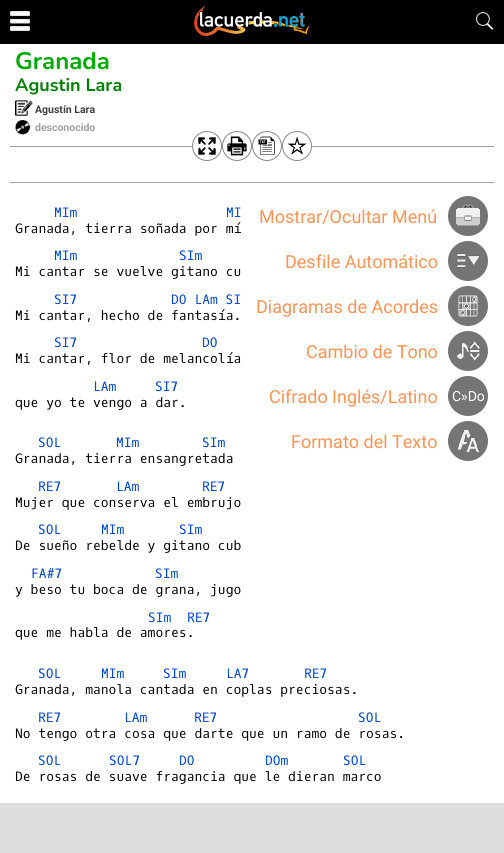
#include <cairo/cairo.h>
#include <math.h>
#include <stddef.h>

typedef struct { double x, y; const char *s; } line_t;
static cairo_t *cr;

static void rgb(unsigned color)
{
	cairo_set_source_rgb(cr, (color >> 16) / 255.0, (color >> 8 & 255) / 255.0, (color & 255) / 255.0);
}

static void image(const char *path, double x, double y, double w, double h)
{
	cairo_surface_t *image = cairo_image_surface_create_from_png(path);
	cairo_save(cr);
	cairo_set_source_surface(cr, image, x, y);
	cairo_rectangle(cr, x, y, w, h);
	cairo_fill(cr);
	cairo_restore(cr);
	cairo_surface_destroy(image);
}

int main(void) {
	cairo_surface_t *surface = cairo_image_surface_create(CAIRO_FORMAT_RGB24, 504, 853);
	cr = cairo_create(surface);
	cairo_font_options_t *options = cairo_font_options_create();
	cairo_font_options_set_hint_metrics(options, CAIRO_HINT_METRICS_OFF);
	cairo_font_options_set_hint_style(options, CAIRO_HINT_STYLE_NONE);
	cairo_set_font_options(cr, options);
	cairo_set_miter_limit(cr, 4);
	rgb(0xffffff);
	cairo_paint(cr);
	rgb(0x000000);
	cairo_rectangle(cr, 0, 0, 504, 44);
	cairo_fill(cr);
	image("img/1.png", 10, 11, 20, 20);
	image("img/2.png", 194, 5, 116, 31);
	image("img/3.png", 476, 12, 18, 18);
	rgb(0xa0a0a0);
	cairo_rectangle(cr, 10, 146, 484, 1);
	cairo_fill(cr);
	image("img/4.png", 15, 100, 18, 16);
	image("img/5.png", 15, 120, 16, 15);
	rgb(0xffffff);
	cairo_arc(cr, 207, 146, 15, 0, 2 * M_PI);
	cairo_fill(cr);
	image("img/6.png", 198, 137, 18, 18);
	cairo_arc(cr, 207, 146, 14.5, 0, 2 * M_PI);
	rgb(0x888888);
	cairo_set_line_width(cr, 1);
	cairo_stroke(cr);
	rgb(0xffffff);
	cairo_arc(cr, 237, 146, 15, 0, 2 * M_PI);
	cairo_fill(cr);
	image("img/7.png", 227, 136, 20, 20);
	cairo_arc(cr, 237, 146, 14.5, 0, 2 * M_PI);
	rgb(0x888888);
	cairo_stroke(cr);
	rgb(0xffffff);
	cairo_arc(cr, 267, 146, 15, 0, 2 * M_PI);
	cairo_fill(cr);
	image("img/8.png", 258, 136, 17, 19);
	cairo_arc(cr, 267, 146, 14.5, 0, 2 * M_PI);
	rgb(0x888888);
	cairo_stroke(cr);
	rgb(0xffffff);
	cairo_arc(cr, 297, 146, 15, 0, 2 * M_PI);
	cairo_fill(cr);
	image("img/9.png", 288, 137, 19, 18);
	cairo_arc(cr, 297, 146, 14.5, 0, 2 * M_PI);
	rgb(0x888888);
	cairo_stroke(cr);
	rgb(0xaaaaaa);
	cairo_rectangle(cr, 10, 182, 484, 1);
	cairo_fill(cr);
	rgb(0x757575);
	cairo_arc(cr, 468, 216, 20, 0, 2 * M_PI);
	cairo_fill(cr);
	image("img/10.png", 456, 204, 24, 22);
	cairo_arc(cr, 468, 261, 20, 0, 2 * M_PI);
	cairo_fill(cr);
	image("img/11.png", 457, 253, 22, 15);
	cairo_arc(cr, 468, 306, 20, 0, 2 * M_PI);
	cairo_fill(cr);
	image("img/12.png", 458, 295, 20, 22);
	cairo_arc(cr, 468, 351, 20, 0, 2 * M_PI);
	cairo_fill(cr);
	image("img/13.png", 457, 341, 23, 20);
	cairo_arc(cr, 468, 396, 20, 0, 2 * M_PI);
	cairo_fill(cr);
	cairo_arc(cr, 468, 441, 20, 0, 2 * M_PI);
	cairo_fill(cr);
	image("img/14.png", 457, 430, 22, 22);
	rgb(0xdddddd);
	cairo_rectangle(cr, 0, 803, 504, 50);
	cairo_fill(cr);
	cairo_select_font_face(cr, "Nunito", CAIRO_FONT_SLANT_NORMAL, CAIRO_FONT_WEIGHT_BOLD);
	cairo_set_font_size(cr, 24);
	rgb(0x00aa00);
	cairo_move_to(cr, 15, 69);
	cairo_show_text(cr, "Granada");
	cairo_set_font_size(cr, 18);
	rgb(0x008000);
	cairo_move_to(cr, 15, 91);
	cairo_show_text(cr, "Agustin Lara");
	cairo_select_font_face(cr, "Roboto", CAIRO_FONT_SLANT_NORMAL, CAIRO_FONT_WEIGHT_BOLD);
	cairo_set_font_size(cr, 10.5);
	rgb(0x404040);
	cairo_move_to(cr, 35, 113);
	cairo_show_text(cr, "Agustín Lara");
	rgb(0xa0a0a0);
	cairo_move_to(cr, 35, 131);
	cairo_show_text(cr, "desconocido");
	cairo_select_font_face(cr, "Oxygen Mono", CAIRO_FONT_SLANT_NORMAL, CAIRO_FONT_WEIGHT_NORMAL);
	cairo_set_font_size(cr, 13);
	rgb(0x0044cc);
	cairo_move_to(cr, 54, 217);
	cairo_show_text(cr, "MIm");
	cairo_move_to(cr, 226, 217);
	cairo_show_text(cr, "MI");
	rgb(0x000000);
	cairo_move_to(cr, 15, 233);
	cairo_show_text(cr, "Granada, tierra soñada por mí");
	rgb(0x0044cc);
	cairo_move_to(cr, 54, 260);
	cairo_show_text(cr, "MIm");
	cairo_move_to(cr, 179, 260);
	cairo_show_text(cr, "SIm");
	rgb(0x000000);
	cairo_move_to(cr, 15, 276);
	cairo_show_text(cr, "Mi cantar se vuelve gitano cu");
	rgb(0x0044cc);
	cairo_move_to(cr, 54, 304);
	cairo_show_text(cr, "SI7");
	cairo_move_to(cr, 171, 304);
	cairo_show_text(cr, "DO LAm SI");
	rgb(0x000000);
	cairo_move_to(cr, 15, 320);
	cairo_show_text(cr, "Mi cantar, hecho de fantasía.");
	rgb(0x0044cc);
	cairo_move_to(cr, 54, 347);
	cairo_show_text(cr, "SI7");
	cairo_move_to(cr, 202, 347);
	cairo_show_text(cr, "DO");
	rgb(0x000000);
	cairo_move_to(cr, 15, 363);
	cairo_show_text(cr, "Mi cantar, flor de melancolía");
	rgb(0x0044cc);
	cairo_move_to(cr, 93, 391);
	cairo_show_text(cr, "LAm");
	cairo_move_to(cr, 155, 391);
	cairo_show_text(cr, "SI7");
	rgb(0x000000);
	cairo_move_to(cr, 15, 407);
	cairo_show_text(cr, "que yo te vengo a dar.");
	rgb(0x0044cc);
	{
		static const line_t items[] = {
			{38, 447, "SOL"},
			{116, 447, "MIm"},
			{202, 447, "SIm"},
		};
		for (size_t i = 0; i < sizeof items / sizeof *items; i++) {
			cairo_move_to(cr, items[i].x, items[i].y);
			cairo_show_text(cr, items[i].s);
		}
	}
	rgb(0x000000);
	cairo_move_to(cr, 15, 463);
	cairo_show_text(cr, "Granada, tierra ensangretada");
	rgb(0x0044cc);
	{
		static const line_t items[] = {
			{38, 491, "RE7"},
			{116, 491, "LAm"},
			{202, 491, "RE7"},
		};
		for (size_t i = 0; i < sizeof items / sizeof *items; i++) {
			cairo_move_to(cr, items[i].x, items[i].y);
			cairo_show_text(cr, items[i].s);
		}
	}
	rgb(0x000000);
	cairo_move_to(cr, 15, 507);
	cairo_show_text(cr, "Mujer que conserva el embrujo");
	rgb(0x0044cc);
	{
		static const line_t items[] = {
			{38, 534, "SOL"},
			{101, 534, "MIm"},
			{179, 534, "SIm"},
		};
		for (size_t i = 0; i < sizeof items / sizeof *items; i++) {
			cairo_move_to(cr, items[i].x, items[i].y);
			cairo_show_text(cr, items[i].s);
		}
	}
	rgb(0x000000);
	cairo_move_to(cr, 15, 550);
	cairo_show_text(cr, "De sueño rebelde y gitano cub");
	rgb(0x0044cc);
	cairo_move_to(cr, 31, 578);
	cairo_show_text(cr, "FA#7");
	cairo_move_to(cr, 155, 578);
	cairo_show_text(cr, "SIm");
	rgb(0x000000);
	cairo_move_to(cr, 15, 594);
	cairo_show_text(cr, "y beso tu boca de grana, jugo");
	rgb(0x0044cc);
	cairo_move_to(cr, 148, 622);
	cairo_show_text(cr, "SIm");
	cairo_move_to(cr, 187, 622);
	cairo_show_text(cr, "RE7");
	rgb(0x000000);
	cairo_move_to(cr, 15, 637);
	cairo_show_text(cr, "que me habla de amores.");
	rgb(0x0044cc);
	{
		static const line_t items[] = {
			{38, 678, "SOL"},
			{101, 678, "MIm"},
			{163, 678, "SIm"},
			{226, 678, "LA7"},
			{304, 678, "RE7"},
		};
		for (size_t i = 0; i < sizeof items / sizeof *items; i++) {
			cairo_move_to(cr, items[i].x, items[i].y);
			cairo_show_text(cr, items[i].s);
		}
	}
	rgb(0x000000);
	cairo_move_to(cr, 15, 694);
	cairo_show_text(cr, "Granada, manola cantada en coplas preciosas.");
	rgb(0x0044cc);
	{
		static const line_t items[] = {
			{38, 722, "RE7"},
			{124, 722, "LAm"},
			{194, 722, "RE7"},
			{358, 722, "SOL"},
		};
		for (size_t i = 0; i < sizeof items / sizeof *items; i++) {
			cairo_move_to(cr, items[i].x, items[i].y);
			cairo_show_text(cr, items[i].s);
		}
	}
	rgb(0x000000);
	cairo_move_to(cr, 15, 738);
	cairo_show_text(cr, "No tengo otra cosa que darte que un ramo de rosas.");
	rgb(0x0044cc);
	{
		static const line_t items[] = {
			{38, 765, "SOL"},
			{109, 765, "SOL7"},
			{179, 765, "DO"},
			{265, 765, "DOm"},
			{343, 765, "SOL"},
		};
		for (size_t i = 0; i < sizeof items / sizeof *items; i++) {
			cairo_move_to(cr, items[i].x, items[i].y);
			cairo_show_text(cr, items[i].s);
		}
	}
	rgb(0x000000);
	cairo_move_to(cr, 15, 781);
	cairo_show_text(cr, "De rosas de suave fragancia que le dieran marco");
	cairo_select_font_face(cr, "Roboto", CAIRO_FONT_SLANT_NORMAL, CAIRO_FONT_WEIGHT_NORMAL);
	cairo_set_font_size(cr, 18);
	rgb(0xff9457);
	{
		static const line_t items[] = {
			{259, 223, "Mostrar/Ocultar Menú"},
			{285, 268, "Desfile Automático"},
			{256, 313, "Diagramas de Acordes"},
			{306, 358, "Cambio de Tono"},
			{269, 403, "Cifrado Inglés/Latino"},
			{291, 448, "Formato del Texto"},
		};
		for (size_t i = 0; i < sizeof items / sizeof *items; i++) {
			cairo_move_to(cr, items[i].x, items[i].y);
			cairo_show_text(cr, items[i].s);
		}
	}
	cairo_set_font_size(cr, 14);
	rgb(0xffffff);
	cairo_move_to(cr, 452, 401);
	cairo_show_text(cr, "C»Do");
	cairo_surface_write_to_png(surface, "page.png");
	cairo_font_options_destroy(options);
	cairo_destroy(cr);
	cairo_surface_destroy(surface);
	return 0;
}
